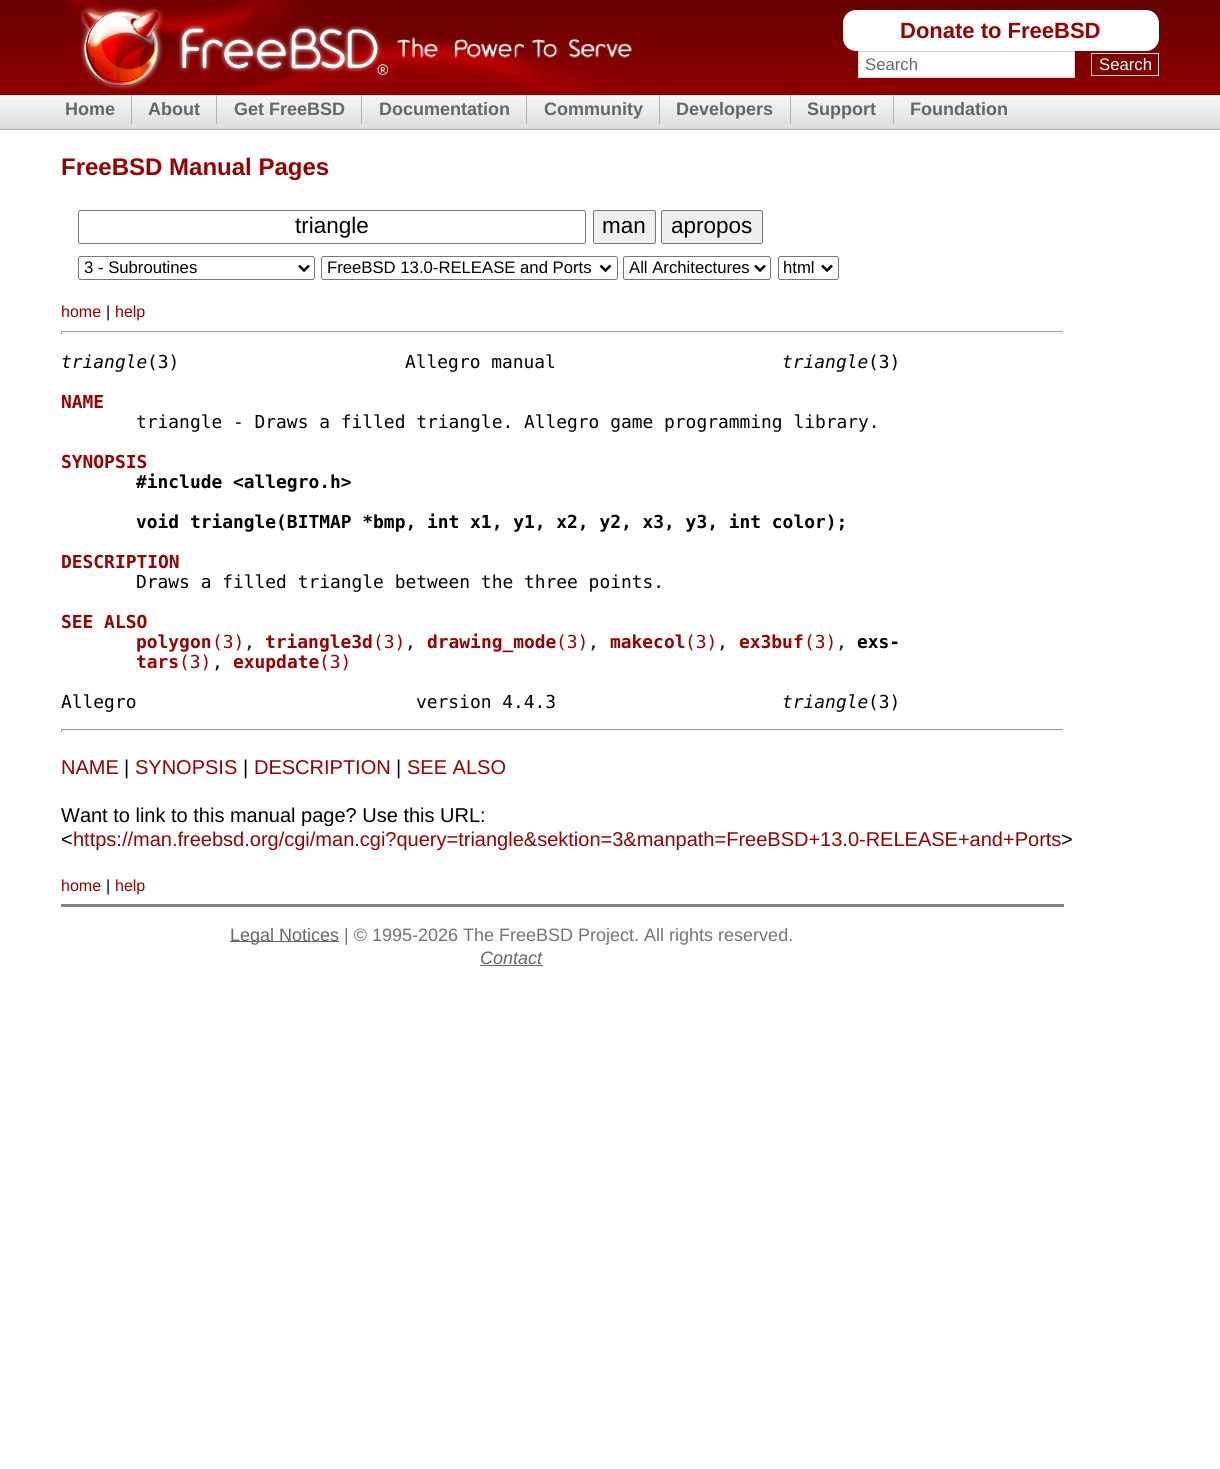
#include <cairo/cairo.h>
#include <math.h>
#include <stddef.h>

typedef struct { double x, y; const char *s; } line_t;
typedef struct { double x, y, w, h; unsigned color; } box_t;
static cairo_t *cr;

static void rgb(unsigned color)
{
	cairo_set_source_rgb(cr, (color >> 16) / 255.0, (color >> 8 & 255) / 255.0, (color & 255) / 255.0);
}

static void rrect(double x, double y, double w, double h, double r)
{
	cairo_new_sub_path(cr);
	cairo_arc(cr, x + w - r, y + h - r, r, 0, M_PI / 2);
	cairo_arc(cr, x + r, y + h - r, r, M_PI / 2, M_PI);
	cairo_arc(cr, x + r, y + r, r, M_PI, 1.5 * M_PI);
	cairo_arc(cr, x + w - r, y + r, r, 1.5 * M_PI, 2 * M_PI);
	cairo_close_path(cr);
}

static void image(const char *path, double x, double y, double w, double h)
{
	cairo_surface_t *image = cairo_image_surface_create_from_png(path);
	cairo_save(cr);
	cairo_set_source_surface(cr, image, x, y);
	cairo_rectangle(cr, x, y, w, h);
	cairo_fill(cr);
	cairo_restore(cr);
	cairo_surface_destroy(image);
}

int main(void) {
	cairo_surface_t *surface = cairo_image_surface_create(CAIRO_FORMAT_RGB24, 1220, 1469);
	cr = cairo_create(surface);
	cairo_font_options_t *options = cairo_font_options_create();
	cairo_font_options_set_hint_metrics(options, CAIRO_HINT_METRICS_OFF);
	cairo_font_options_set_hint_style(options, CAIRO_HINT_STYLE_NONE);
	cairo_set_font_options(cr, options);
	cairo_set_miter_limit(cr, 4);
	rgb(0xffffff);
	cairo_paint(cr);
	image("img/1.png", 0, 0, 1220, 130);
	image("img/2.png", 61, 0, 571, 94);
	rgb(0xffffff);
	rrect(843, 10, 316, 41, 13);
	cairo_fill(cr);
	cairo_rectangle(cr, 858.5, 51.5, 216, 26);
	cairo_fill_preserve(cr);
	rgb(0xdadada);
	cairo_set_line_width(cr, 1);
	cairo_stroke(cr);
	cairo_rectangle(cr, 1091.5, 53.5, 67, 22);
	cairo_stroke(cr);
	{
		static const box_t items[] = {
			{131, 95, 1, 29, 0xb4b4b4},
			{216, 95, 1, 29, 0xb4b4b4},
			{361, 95, 1, 29, 0xb4b4b4},
			{526, 95, 1, 29, 0xb4b4b4},
			{659, 95, 1, 29, 0xb4b4b4},
			{790, 95, 1, 29, 0xb4b4b4},
			{893, 95, 1, 29, 0xb4b4b4},
		};
		for (size_t i = 0; i < sizeof items / sizeof *items; i++) {
			rgb(items[i].color);
			cairo_rectangle(cr, items[i].x, items[i].y, items[i].w, items[i].h);
			cairo_fill(cr);
		}
	}
	rrect(78.5, 210.5, 507, 33, 2);
	rgb(0x767676);
	cairo_stroke(cr);
	rgb(0xefefef);
	rrect(593.5, 210.5, 62, 33, 2);
	cairo_fill_preserve(cr);
	rgb(0x767676);
	cairo_stroke(cr);
	rgb(0xefefef);
	rrect(661.5, 210.5, 101, 33, 2);
	cairo_fill_preserve(cr);
	rgb(0x767676);
	cairo_stroke(cr);
	rrect(78.5, 256.5, 236, 23, 2);
	cairo_stroke(cr);
	cairo_new_path(cr);
	cairo_move_to(cr, 299, 265.5);
	cairo_line_to(cr, 304, 270.5);
	cairo_line_to(cr, 309, 265.5);
	rgb(0x000000);
	cairo_set_line_width(cr, 2.5);
	cairo_stroke(cr);
	rrect(321.5, 256.5, 296, 23, 2);
	rgb(0x767676);
	cairo_set_line_width(cr, 1);
	cairo_stroke(cr);
	cairo_new_path(cr);
	cairo_move_to(cr, 600.5, 265.5);
	cairo_line_to(cr, 605.5, 270.5);
	cairo_line_to(cr, 610.5, 265.5);
	rgb(0x000000);
	cairo_set_line_width(cr, 2.5);
	cairo_stroke(cr);
	rrect(623.5, 256.5, 147, 23, 2);
	rgb(0x767676);
	cairo_set_line_width(cr, 1);
	cairo_stroke(cr);
	cairo_new_path(cr);
	cairo_move_to(cr, 755, 265.5);
	cairo_line_to(cr, 760, 270.5);
	cairo_line_to(cr, 765, 265.5);
	rgb(0x000000);
	cairo_set_line_width(cr, 2.5);
	cairo_stroke(cr);
	rrect(778.5, 256.5, 60, 23, 2);
	rgb(0x767676);
	cairo_set_line_width(cr, 1);
	cairo_stroke(cr);
	cairo_new_path(cr);
	cairo_move_to(cr, 822, 265.5);
	cairo_line_to(cr, 827, 270.5);
	cairo_line_to(cr, 832, 265.5);
	rgb(0x000000);
	cairo_set_line_width(cr, 2.5);
	cairo_stroke(cr);
	{
		static const box_t items[] = {
			{61, 331, 1003, 1, 0x9f9f9f},
			{1063, 331, 1, 3, 0xeeeeee},
			{61, 333, 1003, 1, 0xeeeeee},
			{61, 331, 1, 3, 0x9f9f9f},
			{61, 729, 1003, 1, 0x9f9f9f},
			{1063, 729, 1, 3, 0xeeeeee},
			{61, 730, 1003, 1, 0xeeeeee},
			{61, 729, 1, 3, 0x9f9f9f},
			{61, 904, 1003, 3, 0x808080},
			{230, 941, 109, 1, 0x666666},
			{480, 965, 63, 1, 0x666666},
		};
		for (size_t i = 0; i < sizeof items / sizeof *items; i++) {
			rgb(items[i].color);
			cairo_rectangle(cr, items[i].x, items[i].y, items[i].w, items[i].h);
			cairo_fill(cr);
		}
	}
	cairo_select_font_face(cr, "Liberation Sans", CAIRO_FONT_SLANT_NORMAL, CAIRO_FONT_WEIGHT_BOLD);
	cairo_set_font_size(cr, 22);
	rgb(0x990000);
	cairo_move_to(cr, 900, 38);
	cairo_show_text(cr, "Donate to FreeBSD");
	cairo_select_font_face(cr, "Liberation Sans", CAIRO_FONT_SLANT_NORMAL, CAIRO_FONT_WEIGHT_NORMAL);
	cairo_set_font_size(cr, 16.7);
	rgb(0x666666);
	cairo_move_to(cr, 865, 70);
	cairo_show_text(cr, "Search");
	rgb(0xffffff);
	cairo_move_to(cr, 1099, 70);
	cairo_show_text(cr, "Search");
	cairo_select_font_face(cr, "Liberation Sans", CAIRO_FONT_SLANT_NORMAL, CAIRO_FONT_WEIGHT_BOLD);
	cairo_set_font_size(cr, 18);
	rgb(0x666666);
	{
		static const line_t items[] = {
			{65, 115, "Home"},
			{148, 115, "About"},
			{234, 115, "Get FreeBSD"},
			{379, 115, "Documentation"},
			{544, 115, "Community"},
			{676, 115, "Developers"},
			{807, 115, "Support"},
			{910, 115, "Foundation"},
		};
		for (size_t i = 0; i < sizeof items / sizeof *items; i++) {
			cairo_move_to(cr, items[i].x, items[i].y);
			cairo_show_text(cr, items[i].s);
		}
	}
	cairo_set_font_size(cr, 24);
	rgb(0x990000);
	cairo_move_to(cr, 61, 175);
	cairo_show_text(cr, "FreeBSD Manual Pages");
	cairo_select_font_face(cr, "Liberation Sans", CAIRO_FONT_SLANT_NORMAL, CAIRO_FONT_WEIGHT_NORMAL);
	cairo_set_font_size(cr, 22.5);
	rgb(0x000000);
	{
		static const line_t items[] = {
			{295, 233, "triangle"},
			{602, 233, "man"},
			{671, 233, "apropos"},
		};
		for (size_t i = 0; i < sizeof items / sizeof *items; i++) {
			cairo_move_to(cr, items[i].x, items[i].y);
			cairo_show_text(cr, items[i].s);
		}
	}
	cairo_set_font_size(cr, 16.7);
	{
		static const line_t items[] = {
			{84, 273, "3 - Subroutines"},
			{327, 273, "FreeBSD 13.0-RELEASE and Ports"},
			{629, 273, "All Architectures"},
			{783, 273, "html"},
		};
		for (size_t i = 0; i < sizeof items / sizeof *items; i++) {
			cairo_move_to(cr, items[i].x, items[i].y);
			cairo_show_text(cr, items[i].s);
		}
	}
	cairo_set_font_size(cr, 16);
	rgb(0x990000);
	cairo_move_to(cr, 61, 317);
	cairo_show_text(cr, "home");
	rgb(0x000000);
	cairo_move_to(cr, 106, 317);
	cairo_show_text(cr, "|");
	rgb(0x990000);
	cairo_move_to(cr, 115, 317);
	cairo_show_text(cr, "help");
	cairo_select_font_face(cr, "DejaVu Sans Mono", CAIRO_FONT_SLANT_ITALIC, CAIRO_FONT_WEIGHT_NORMAL);
	cairo_set_font_size(cr, 17.9);
	rgb(0x000000);
	cairo_move_to(cr, 61, 368);
	cairo_show_text(cr, "triangle");
	cairo_select_font_face(cr, "DejaVu Sans Mono", CAIRO_FONT_SLANT_NORMAL, CAIRO_FONT_WEIGHT_NORMAL);
	cairo_move_to(cr, 147, 368);
	cairo_show_text(cr, "(3)");
	cairo_move_to(cr, 405, 368);
	cairo_show_text(cr, "Allegro manual");
	cairo_select_font_face(cr, "DejaVu Sans Mono", CAIRO_FONT_SLANT_ITALIC, CAIRO_FONT_WEIGHT_NORMAL);
	cairo_move_to(cr, 782, 368);
	cairo_show_text(cr, "triangle");
	cairo_select_font_face(cr, "DejaVu Sans Mono", CAIRO_FONT_SLANT_NORMAL, CAIRO_FONT_WEIGHT_NORMAL);
	cairo_move_to(cr, 868, 368);
	cairo_show_text(cr, "(3)");
	cairo_select_font_face(cr, "DejaVu Sans Mono", CAIRO_FONT_SLANT_NORMAL, CAIRO_FONT_WEIGHT_BOLD);
	rgb(0x990000);
	cairo_move_to(cr, 61, 408);
	cairo_show_text(cr, "NAME");
	cairo_select_font_face(cr, "DejaVu Sans Mono", CAIRO_FONT_SLANT_NORMAL, CAIRO_FONT_WEIGHT_NORMAL);
	rgb(0x000000);
	cairo_move_to(cr, 136, 428);
	cairo_show_text(cr, "triangle - Draws a filled triangle. Allegro game programming library.");
	cairo_select_font_face(cr, "DejaVu Sans Mono", CAIRO_FONT_SLANT_NORMAL, CAIRO_FONT_WEIGHT_BOLD);
	rgb(0x990000);
	cairo_move_to(cr, 61, 468);
	cairo_show_text(cr, "SYNOPSIS");
	rgb(0x000000);
	cairo_move_to(cr, 136, 488);
	cairo_show_text(cr, "#include <allegro.h>");
	cairo_move_to(cr, 136, 528);
	cairo_show_text(cr, "void triangle(BITMAP *bmp, int x1, y1, x2, y2, x3, y3, int color);");
	rgb(0x990000);
	cairo_move_to(cr, 61, 568);
	cairo_show_text(cr, "DESCRIPTION");
	cairo_select_font_face(cr, "DejaVu Sans Mono", CAIRO_FONT_SLANT_NORMAL, CAIRO_FONT_WEIGHT_NORMAL);
	rgb(0x000000);
	cairo_move_to(cr, 136, 588);
	cairo_show_text(cr, "Draws a filled triangle between the three points.");
	cairo_select_font_face(cr, "DejaVu Sans Mono", CAIRO_FONT_SLANT_NORMAL, CAIRO_FONT_WEIGHT_BOLD);
	rgb(0x990000);
	cairo_move_to(cr, 61, 628);
	cairo_show_text(cr, "SEE ALSO");
	cairo_move_to(cr, 136, 648);
	cairo_show_text(cr, "polygon");
	cairo_select_font_face(cr, "DejaVu Sans Mono", CAIRO_FONT_SLANT_NORMAL, CAIRO_FONT_WEIGHT_NORMAL);
	cairo_move_to(cr, 212, 648);
	cairo_show_text(cr, "(3)");
	rgb(0x000000);
	cairo_move_to(cr, 244, 648);
	cairo_show_text(cr, ",");
	cairo_select_font_face(cr, "DejaVu Sans Mono", CAIRO_FONT_SLANT_NORMAL, CAIRO_FONT_WEIGHT_BOLD);
	rgb(0x990000);
	cairo_move_to(cr, 265, 648);
	cairo_show_text(cr, "triangle3d");
	cairo_select_font_face(cr, "DejaVu Sans Mono", CAIRO_FONT_SLANT_NORMAL, CAIRO_FONT_WEIGHT_NORMAL);
	cairo_move_to(cr, 373, 648);
	cairo_show_text(cr, "(3)");
	rgb(0x000000);
	cairo_move_to(cr, 405, 648);
	cairo_show_text(cr, ",");
	cairo_select_font_face(cr, "DejaVu Sans Mono", CAIRO_FONT_SLANT_NORMAL, CAIRO_FONT_WEIGHT_BOLD);
	rgb(0x990000);
	cairo_move_to(cr, 427, 648);
	cairo_show_text(cr, "drawing_mode");
	cairo_select_font_face(cr, "DejaVu Sans Mono", CAIRO_FONT_SLANT_NORMAL, CAIRO_FONT_WEIGHT_NORMAL);
	cairo_move_to(cr, 556, 648);
	cairo_show_text(cr, "(3)");
	rgb(0x000000);
	cairo_move_to(cr, 588, 648);
	cairo_show_text(cr, ",");
	cairo_select_font_face(cr, "DejaVu Sans Mono", CAIRO_FONT_SLANT_NORMAL, CAIRO_FONT_WEIGHT_BOLD);
	rgb(0x990000);
	cairo_move_to(cr, 610, 648);
	cairo_show_text(cr, "makecol");
	cairo_select_font_face(cr, "DejaVu Sans Mono", CAIRO_FONT_SLANT_NORMAL, CAIRO_FONT_WEIGHT_NORMAL);
	cairo_move_to(cr, 685, 648);
	cairo_show_text(cr, "(3)");
	rgb(0x000000);
	cairo_move_to(cr, 717, 648);
	cairo_show_text(cr, ",");
	cairo_select_font_face(cr, "DejaVu Sans Mono", CAIRO_FONT_SLANT_NORMAL, CAIRO_FONT_WEIGHT_BOLD);
	rgb(0x990000);
	cairo_move_to(cr, 739, 648);
	cairo_show_text(cr, "ex3buf");
	cairo_select_font_face(cr, "DejaVu Sans Mono", CAIRO_FONT_SLANT_NORMAL, CAIRO_FONT_WEIGHT_NORMAL);
	cairo_move_to(cr, 804, 648);
	cairo_show_text(cr, "(3)");
	rgb(0x000000);
	cairo_move_to(cr, 836, 648);
	cairo_show_text(cr, ",");
	cairo_select_font_face(cr, "DejaVu Sans Mono", CAIRO_FONT_SLANT_NORMAL, CAIRO_FONT_WEIGHT_BOLD);
	cairo_move_to(cr, 857, 648);
	cairo_show_text(cr, "exs-");
	rgb(0x990000);
	cairo_move_to(cr, 136, 668);
	cairo_show_text(cr, "tars");
	cairo_select_font_face(cr, "DejaVu Sans Mono", CAIRO_FONT_SLANT_NORMAL, CAIRO_FONT_WEIGHT_NORMAL);
	cairo_move_to(cr, 179, 668);
	cairo_show_text(cr, "(3)");
	rgb(0x000000);
	cairo_move_to(cr, 212, 668);
	cairo_show_text(cr, ",");
	cairo_select_font_face(cr, "DejaVu Sans Mono", CAIRO_FONT_SLANT_NORMAL, CAIRO_FONT_WEIGHT_BOLD);
	rgb(0x990000);
	cairo_move_to(cr, 233, 668);
	cairo_show_text(cr, "exupdate");
	cairo_select_font_face(cr, "DejaVu Sans Mono", CAIRO_FONT_SLANT_NORMAL, CAIRO_FONT_WEIGHT_NORMAL);
	cairo_move_to(cr, 319, 668);
	cairo_show_text(cr, "(3)");
	rgb(0x000000);
	cairo_move_to(cr, 61, 708);
	cairo_show_text(cr, "Allegro");
	cairo_move_to(cr, 416, 708);
	cairo_show_text(cr, "version 4.4.3");
	cairo_select_font_face(cr, "DejaVu Sans Mono", CAIRO_FONT_SLANT_ITALIC, CAIRO_FONT_WEIGHT_NORMAL);
	cairo_move_to(cr, 782, 708);
	cairo_show_text(cr, "triangle");
	cairo_select_font_face(cr, "DejaVu Sans Mono", CAIRO_FONT_SLANT_NORMAL, CAIRO_FONT_WEIGHT_NORMAL);
	cairo_move_to(cr, 868, 708);
	cairo_show_text(cr, "(3)");
	cairo_select_font_face(cr, "Liberation Sans", CAIRO_FONT_SLANT_NORMAL, CAIRO_FONT_WEIGHT_NORMAL);
	cairo_set_font_size(cr, 20);
	rgb(0x990000);
	cairo_move_to(cr, 61, 774);
	cairo_show_text(cr, "NAME");
	rgb(0x000000);
	cairo_move_to(cr, 124, 774);
	cairo_show_text(cr, "|");
	rgb(0x990000);
	cairo_move_to(cr, 135, 774);
	cairo_show_text(cr, "SYNOPSIS");
	rgb(0x000000);
	cairo_move_to(cr, 243, 774);
	cairo_show_text(cr, "|");
	rgb(0x990000);
	cairo_move_to(cr, 254, 774);
	cairo_show_text(cr, "DESCRIPTION");
	rgb(0x000000);
	cairo_move_to(cr, 396, 774);
	cairo_show_text(cr, "|");
	rgb(0x990000);
	cairo_move_to(cr, 407, 774);
	cairo_show_text(cr, "SEE ALSO");
	rgb(0x000000);
	cairo_move_to(cr, 61, 822);
	cairo_show_text(cr, "Want to link to this manual page? Use this URL:");
	cairo_move_to(cr, 61, 846);
	cairo_show_text(cr, "<");
	rgb(0x990000);
	cairo_move_to(cr, 73, 846);
	cairo_show_text(cr, "https://man.freebsd.org/cgi/man.cgi?query=triangle&sektion=3&manpath=FreeBSD+13.0-RELEASE+and+Ports");
	rgb(0x000000);
	cairo_move_to(cr, 1061, 846);
	cairo_show_text(cr, ">");
	cairo_set_font_size(cr, 16);
	rgb(0x990000);
	cairo_move_to(cr, 61, 891);
	cairo_show_text(cr, "home");
	rgb(0x000000);
	cairo_move_to(cr, 106, 891);
	cairo_show_text(cr, "|");
	rgb(0x990000);
	cairo_move_to(cr, 115, 891);
	cairo_show_text(cr, "help");
	cairo_set_font_size(cr, 18);
	rgb(0x666666);
	cairo_move_to(cr, 230, 941);
	cairo_show_text(cr, "Legal Notices");
	rgb(0x737373);
	cairo_move_to(cr, 344, 941);
	cairo_show_text(cr, "| © 1995-2026 The FreeBSD Project. All rights reserved.");
	cairo_select_font_face(cr, "Liberation Sans", CAIRO_FONT_SLANT_ITALIC, CAIRO_FONT_WEIGHT_NORMAL);
	rgb(0x666666);
	cairo_move_to(cr, 480, 964);
	cairo_show_text(cr, "Contact");
	cairo_surface_write_to_png(surface, "page.png");
	cairo_font_options_destroy(options);
	cairo_destroy(cr);
	cairo_surface_destroy(surface);
	return 0;
}
